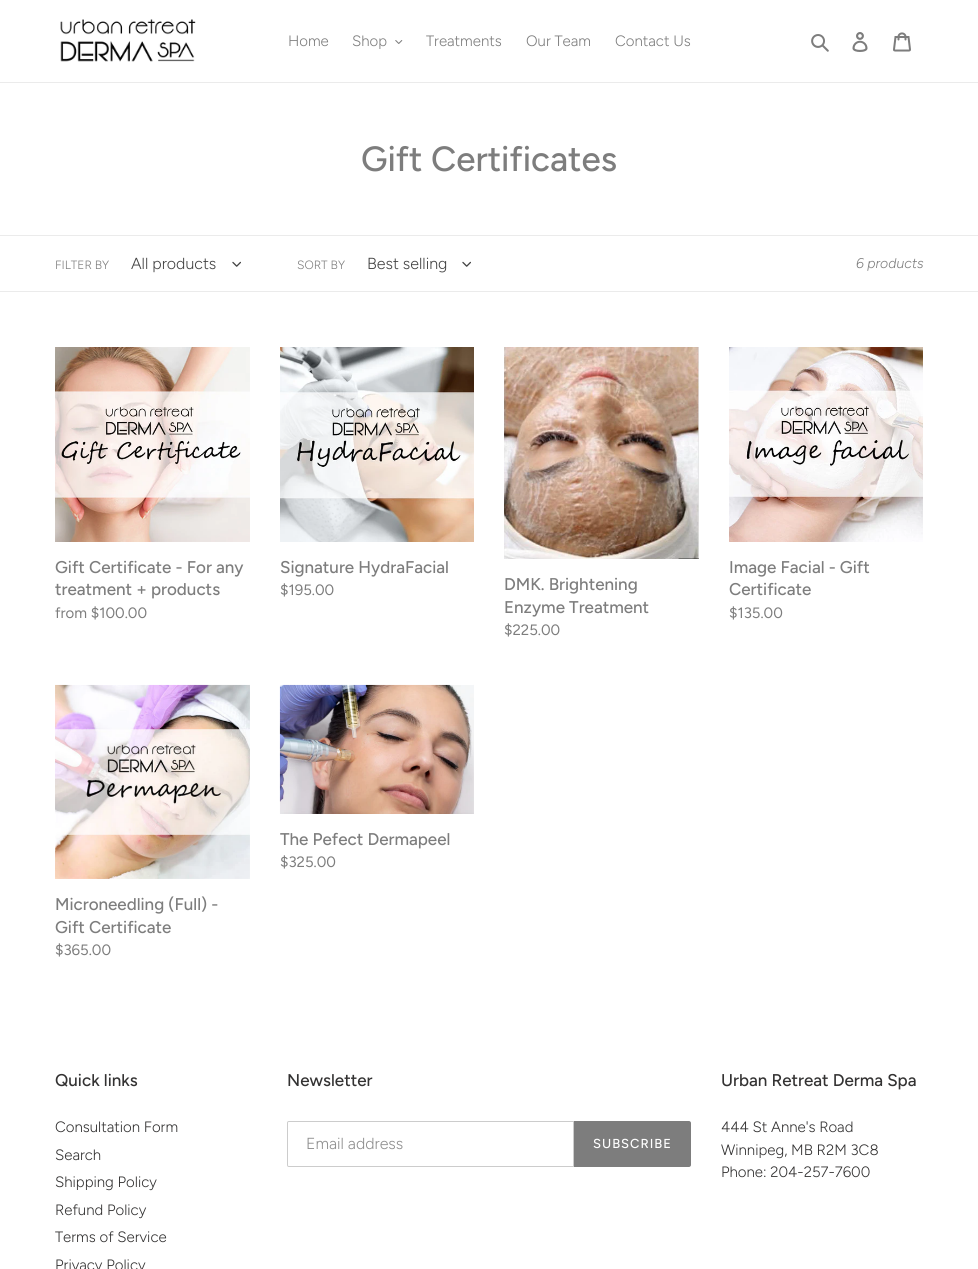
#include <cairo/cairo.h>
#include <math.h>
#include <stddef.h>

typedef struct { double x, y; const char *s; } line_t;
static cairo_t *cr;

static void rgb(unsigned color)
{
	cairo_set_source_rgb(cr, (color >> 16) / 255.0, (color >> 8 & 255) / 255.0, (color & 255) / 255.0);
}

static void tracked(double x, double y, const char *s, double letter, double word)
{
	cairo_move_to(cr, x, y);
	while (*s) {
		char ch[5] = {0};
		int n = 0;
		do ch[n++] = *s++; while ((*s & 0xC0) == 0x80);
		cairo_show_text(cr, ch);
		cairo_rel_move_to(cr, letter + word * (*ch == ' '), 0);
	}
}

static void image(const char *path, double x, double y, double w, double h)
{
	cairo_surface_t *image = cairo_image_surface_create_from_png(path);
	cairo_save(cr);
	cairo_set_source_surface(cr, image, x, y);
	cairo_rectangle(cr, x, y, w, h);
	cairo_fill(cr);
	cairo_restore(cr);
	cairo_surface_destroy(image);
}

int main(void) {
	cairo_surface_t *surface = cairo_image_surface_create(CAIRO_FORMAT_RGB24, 978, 1269);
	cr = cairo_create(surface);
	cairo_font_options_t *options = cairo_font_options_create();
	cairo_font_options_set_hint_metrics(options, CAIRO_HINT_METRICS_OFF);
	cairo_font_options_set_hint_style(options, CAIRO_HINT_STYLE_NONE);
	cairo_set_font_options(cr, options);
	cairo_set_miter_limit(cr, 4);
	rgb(0xffffff);
	cairo_paint(cr);
	rgb(0xebebeb);
	cairo_rectangle(cr, 0, 82, 978, 1);
	cairo_fill(cr);
	image("img/1.png", 60, 19, 136, 43);
	image("img/2.png", 395, 40, 8, 4);
	image("img/3.png", 811, 34, 18, 18);
	image("img/4.png", 852, 32, 16, 20);
	image("img/5.png", 893, 32, 18, 20);
	cairo_rectangle(cr, 0, 235, 978, 1);
	cairo_fill(cr);
	cairo_rectangle(cr, 0, 291, 978, 1);
	cairo_fill(cr);
	image("img/6.png", 232, 261, 9, 6);
	image("img/6.png", 462, 261, 9, 6);
	image("img/7.png", 55, 347, 195, 195);
	image("img/8.png", 280, 347, 194, 195);
	image("img/9.png", 504, 347, 195, 212);
	image("img/10.png", 729, 347, 194, 195);
	image("img/11.png", 279, 684, 195, 130);
	image("img/12.png", 55, 684, 195, 195);
	cairo_new_path(cr);
	cairo_move_to(cr, 289, 1121.5);
	cairo_line_to(cr, 573.5, 1121.5);
	cairo_line_to(cr, 573.5, 1166.5);
	cairo_line_to(cr, 289, 1166.5);
	cairo_curve_to(cr, 288, 1166.5, 287.5, 1166, 287.5, 1165);
	cairo_line_to(cr, 287.5, 1123);
	cairo_curve_to(cr, 287.5, 1122, 288, 1121.5, 289, 1121.5);
	cairo_close_path(cr);
	rgb(0xcccccc);
	cairo_set_line_width(cr, 1);
	cairo_stroke(cr);
	rgb(0x7d7d7d);
	cairo_new_path(cr);
	cairo_move_to(cr, 574, 1121);
	cairo_line_to(cr, 689, 1121);
	cairo_curve_to(cr, 690, 1121, 691, 1122, 691, 1123);
	cairo_line_to(cr, 691, 1165);
	cairo_curve_to(cr, 691, 1166, 690, 1167, 689, 1167);
	cairo_line_to(cr, 574, 1167);
	cairo_close_path(cr);
	cairo_fill(cr);
	cairo_select_font_face(cr, "Figtree Light", CAIRO_FONT_SLANT_NORMAL, CAIRO_FONT_WEIGHT_NORMAL);
	cairo_set_font_size(cr, 15);
	{
		static const line_t items[] = {
			{288, 46, "Home"},
			{352, 46, "Shop"},
			{426, 46, "Treatments"},
			{526, 46, "Our Team"},
			{615, 46, "Contact Us"},
		};
		for (size_t i = 0; i < sizeof items / sizeof *items; i++) {
			cairo_move_to(cr, items[i].x, items[i].y);
			cairo_show_text(cr, items[i].s);
		}
	}
	cairo_select_font_face(cr, "Figtree Medium", CAIRO_FONT_SLANT_NORMAL, CAIRO_FONT_WEIGHT_NORMAL);
	cairo_set_font_size(cr, 35);
	cairo_move_to(cr, 361, 171);
	cairo_show_text(cr, "Gift Certificates");
	cairo_select_font_face(cr, "Figtree Light", CAIRO_FONT_SLANT_NORMAL, CAIRO_FONT_WEIGHT_NORMAL);
	cairo_set_font_size(cr, 12);
	cairo_move_to(cr, 55, 269);
	cairo_show_text(cr, "FILTER BY");
	cairo_set_font_size(cr, 16);
	rgb(0x434343);
	cairo_move_to(cr, 131, 269);
	cairo_show_text(cr, "All products");
	cairo_set_font_size(cr, 12);
	rgb(0x7d7d7d);
	cairo_move_to(cr, 297, 269);
	cairo_show_text(cr, "SORT BY");
	cairo_set_font_size(cr, 16);
	rgb(0x434343);
	cairo_move_to(cr, 367, 269);
	cairo_show_text(cr, "Best selling");
	cairo_select_font_face(cr, "Figtree Light", CAIRO_FONT_SLANT_ITALIC, CAIRO_FONT_WEIGHT_NORMAL);
	cairo_set_font_size(cr, 14);
	rgb(0x7d7d7d);
	cairo_move_to(cr, 856, 268);
	cairo_show_text(cr, "6 products");
	cairo_select_font_face(cr, "Figtree Medium", CAIRO_FONT_SLANT_NORMAL, CAIRO_FONT_WEIGHT_NORMAL);
	cairo_set_font_size(cr, 17);
	cairo_move_to(cr, 55, 573);
	cairo_show_text(cr, "Gift Certificate - For any");
	cairo_move_to(cr, 55, 595);
	cairo_show_text(cr, "treatment + products");
	cairo_select_font_face(cr, "Figtree", CAIRO_FONT_SLANT_NORMAL, CAIRO_FONT_WEIGHT_NORMAL);
	cairo_set_font_size(cr, 15);
	cairo_move_to(cr, 55, 618);
	cairo_show_text(cr, "from $100.00");
	cairo_select_font_face(cr, "Figtree Medium", CAIRO_FONT_SLANT_NORMAL, CAIRO_FONT_WEIGHT_NORMAL);
	cairo_set_font_size(cr, 17);
	cairo_move_to(cr, 280, 573);
	cairo_show_text(cr, "Signature HydraFacial");
	cairo_select_font_face(cr, "Figtree", CAIRO_FONT_SLANT_NORMAL, CAIRO_FONT_WEIGHT_NORMAL);
	cairo_set_font_size(cr, 15);
	cairo_move_to(cr, 280, 595);
	cairo_show_text(cr, "$195.00");
	cairo_select_font_face(cr, "Figtree Medium", CAIRO_FONT_SLANT_NORMAL, CAIRO_FONT_WEIGHT_NORMAL);
	cairo_set_font_size(cr, 17);
	cairo_move_to(cr, 504, 590);
	cairo_show_text(cr, "DMK. Brightening");
	cairo_move_to(cr, 504, 613);
	cairo_show_text(cr, "Enzyme Treatment");
	cairo_select_font_face(cr, "Figtree", CAIRO_FONT_SLANT_NORMAL, CAIRO_FONT_WEIGHT_NORMAL);
	cairo_set_font_size(cr, 15);
	cairo_move_to(cr, 504, 635);
	cairo_show_text(cr, "$225.00");
	cairo_select_font_face(cr, "Figtree Medium", CAIRO_FONT_SLANT_NORMAL, CAIRO_FONT_WEIGHT_NORMAL);
	cairo_set_font_size(cr, 17);
	cairo_move_to(cr, 729, 573);
	cairo_show_text(cr, "Image Facial - Gift");
	cairo_move_to(cr, 729, 595);
	cairo_show_text(cr, "Certificate");
	cairo_select_font_face(cr, "Figtree", CAIRO_FONT_SLANT_NORMAL, CAIRO_FONT_WEIGHT_NORMAL);
	cairo_set_font_size(cr, 15);
	cairo_move_to(cr, 729, 618);
	cairo_show_text(cr, "$135.00");
	cairo_select_font_face(cr, "Figtree Medium", CAIRO_FONT_SLANT_NORMAL, CAIRO_FONT_WEIGHT_NORMAL);
	cairo_set_font_size(cr, 17);
	cairo_move_to(cr, 280, 845);
	cairo_show_text(cr, "The Pefect Dermapeel");
	cairo_select_font_face(cr, "Figtree", CAIRO_FONT_SLANT_NORMAL, CAIRO_FONT_WEIGHT_NORMAL);
	cairo_set_font_size(cr, 15);
	cairo_move_to(cr, 280, 867);
	cairo_show_text(cr, "$325.00");
	cairo_select_font_face(cr, "Figtree Medium", CAIRO_FONT_SLANT_NORMAL, CAIRO_FONT_WEIGHT_NORMAL);
	cairo_set_font_size(cr, 17);
	cairo_move_to(cr, 55, 910);
	cairo_show_text(cr, "Microneedling (Full) -");
	cairo_move_to(cr, 55, 933);
	cairo_show_text(cr, "Gift Certificate");
	cairo_select_font_face(cr, "Figtree", CAIRO_FONT_SLANT_NORMAL, CAIRO_FONT_WEIGHT_NORMAL);
	cairo_set_font_size(cr, 15);
	cairo_move_to(cr, 55, 955);
	cairo_show_text(cr, "$365.00");
	cairo_select_font_face(cr, "Figtree Medium", CAIRO_FONT_SLANT_NORMAL, CAIRO_FONT_WEIGHT_NORMAL);
	cairo_set_font_size(cr, 17);
	rgb(0x333232);
	cairo_move_to(cr, 55, 1086);
	cairo_show_text(cr, "Quick links");
	cairo_select_font_face(cr, "Figtree Light", CAIRO_FONT_SLANT_NORMAL, CAIRO_FONT_WEIGHT_NORMAL);
	cairo_set_font_size(cr, 15);
	{
		static const line_t items[] = {
			{55, 1132, "Consultation Form"},
			{55, 1160, "Search"},
			{55, 1187, "Shipping Policy"},
			{55, 1215, "Refund Policy"},
			{55, 1242, "Terms of Service"},
			{55, 1270, "Privacy Policy"},
		};
		for (size_t i = 0; i < sizeof items / sizeof *items; i++) {
			cairo_move_to(cr, items[i].x, items[i].y);
			cairo_show_text(cr, items[i].s);
		}
	}
	cairo_select_font_face(cr, "Figtree Medium", CAIRO_FONT_SLANT_NORMAL, CAIRO_FONT_WEIGHT_NORMAL);
	cairo_set_font_size(cr, 17);
	cairo_move_to(cr, 287, 1086);
	cairo_show_text(cr, "Newsletter");
	cairo_select_font_face(cr, "Figtree Light", CAIRO_FONT_SLANT_NORMAL, CAIRO_FONT_WEIGHT_NORMAL);
	cairo_set_font_size(cr, 16);
	rgb(0x8e8e8e);
	cairo_move_to(cr, 306, 1149);
	cairo_show_text(cr, "Email address");
	cairo_select_font_face(cr, "Figtree Medium", CAIRO_FONT_SLANT_NORMAL, CAIRO_FONT_WEIGHT_NORMAL);
	cairo_set_font_size(cr, 13);
	rgb(0xffffff);
	tracked(593, 1148, "SUBSCRIBE", 1, 0);
	cairo_set_font_size(cr, 17);
	rgb(0x333232);
	cairo_move_to(cr, 721, 1086);
	cairo_show_text(cr, "Urban Retreat Derma Spa");
	cairo_select_font_face(cr, "Figtree Light", CAIRO_FONT_SLANT_NORMAL, CAIRO_FONT_WEIGHT_NORMAL);
	cairo_set_font_size(cr, 15);
	{
		static const line_t items[] = {
			{721, 1132, "444 St Anne's Road"},
			{721, 1155, "Winnipeg, MB R2M 3C8"},
			{721, 1177, "Phone: 204-257-7600"},
		};
		for (size_t i = 0; i < sizeof items / sizeof *items; i++) {
			cairo_move_to(cr, items[i].x, items[i].y);
			cairo_show_text(cr, items[i].s);
		}
	}
	cairo_surface_write_to_png(surface, "page.png");
	cairo_font_options_destroy(options);
	cairo_destroy(cr);
	cairo_surface_destroy(surface);
	return 0;
}
